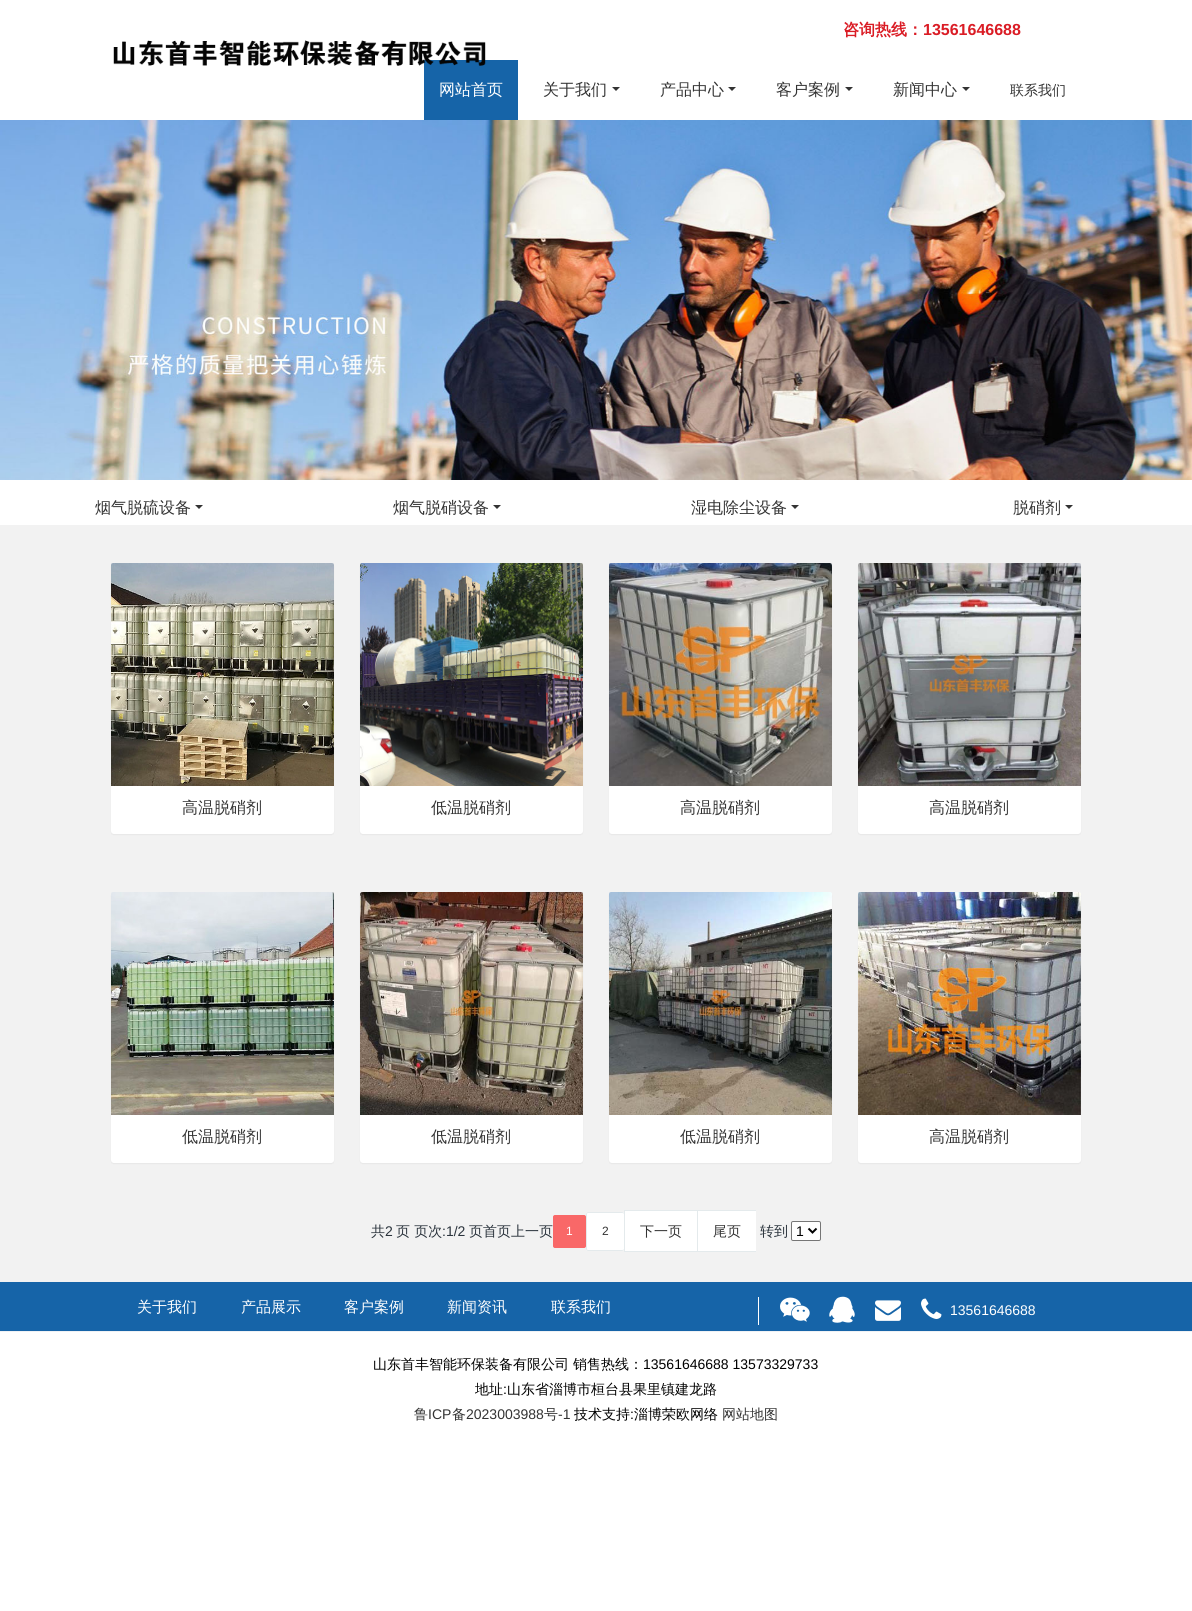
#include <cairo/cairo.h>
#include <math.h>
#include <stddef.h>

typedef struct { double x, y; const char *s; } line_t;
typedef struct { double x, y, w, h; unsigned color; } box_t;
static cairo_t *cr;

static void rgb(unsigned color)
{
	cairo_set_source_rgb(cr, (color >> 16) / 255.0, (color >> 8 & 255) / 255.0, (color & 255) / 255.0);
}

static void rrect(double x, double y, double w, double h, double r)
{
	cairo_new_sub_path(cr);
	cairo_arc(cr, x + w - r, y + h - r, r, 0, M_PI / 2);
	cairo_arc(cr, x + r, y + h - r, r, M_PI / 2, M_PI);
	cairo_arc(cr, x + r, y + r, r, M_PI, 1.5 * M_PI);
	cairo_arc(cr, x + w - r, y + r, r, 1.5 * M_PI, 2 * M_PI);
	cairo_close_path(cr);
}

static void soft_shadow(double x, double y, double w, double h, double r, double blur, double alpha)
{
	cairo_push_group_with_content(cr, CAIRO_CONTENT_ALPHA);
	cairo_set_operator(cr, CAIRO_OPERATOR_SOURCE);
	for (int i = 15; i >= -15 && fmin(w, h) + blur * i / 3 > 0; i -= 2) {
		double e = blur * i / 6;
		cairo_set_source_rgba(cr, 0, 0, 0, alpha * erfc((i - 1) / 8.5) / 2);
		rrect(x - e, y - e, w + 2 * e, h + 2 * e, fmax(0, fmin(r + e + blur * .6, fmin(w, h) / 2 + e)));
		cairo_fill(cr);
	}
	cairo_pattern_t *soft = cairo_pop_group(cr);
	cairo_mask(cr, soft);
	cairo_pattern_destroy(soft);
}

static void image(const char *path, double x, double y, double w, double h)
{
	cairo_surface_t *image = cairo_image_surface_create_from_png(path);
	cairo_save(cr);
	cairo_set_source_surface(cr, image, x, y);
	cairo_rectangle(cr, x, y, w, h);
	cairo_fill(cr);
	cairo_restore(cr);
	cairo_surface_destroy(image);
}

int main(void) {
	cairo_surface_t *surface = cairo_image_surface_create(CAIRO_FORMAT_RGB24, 1192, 1611);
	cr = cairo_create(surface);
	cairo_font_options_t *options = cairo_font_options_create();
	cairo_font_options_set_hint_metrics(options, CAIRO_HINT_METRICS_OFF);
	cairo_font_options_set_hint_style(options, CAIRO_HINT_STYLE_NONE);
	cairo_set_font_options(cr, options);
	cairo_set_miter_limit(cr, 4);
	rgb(0xffffff);
	cairo_paint(cr);
	rgb(0x1664a8);
	cairo_rectangle(cr, 424, 60, 94, 60);
	cairo_fill(cr);
	image("img/1.png", 113, 40, 373, 26);
	rgb(0x333333);
	cairo_new_path(cr);
	cairo_move_to(cr, 612, 87);
	cairo_line_to(cr, 620, 87);
	cairo_line_to(cr, 616, 91);
	cairo_close_path(cr);
	cairo_fill(cr);
	cairo_new_path(cr);
	cairo_move_to(cr, 728, 87);
	cairo_line_to(cr, 736, 87);
	cairo_line_to(cr, 732, 91);
	cairo_close_path(cr);
	cairo_fill(cr);
	cairo_new_path(cr);
	cairo_move_to(cr, 845, 87);
	cairo_line_to(cr, 853, 87);
	cairo_line_to(cr, 849, 91);
	cairo_close_path(cr);
	cairo_fill(cr);
	cairo_new_path(cr);
	cairo_move_to(cr, 962, 87);
	cairo_line_to(cr, 970, 87);
	cairo_line_to(cr, 966, 91);
	cairo_close_path(cr);
	cairo_fill(cr);
	image("img/2.png", 0, 120, 1192, 360);
	cairo_new_path(cr);
	cairo_move_to(cr, 195, 505);
	cairo_line_to(cr, 203, 505);
	cairo_line_to(cr, 199, 509);
	cairo_close_path(cr);
	cairo_fill(cr);
	cairo_new_path(cr);
	cairo_move_to(cr, 493, 505);
	cairo_line_to(cr, 501, 505);
	cairo_line_to(cr, 497, 509);
	cairo_close_path(cr);
	cairo_fill(cr);
	cairo_new_path(cr);
	cairo_move_to(cr, 791, 505);
	cairo_line_to(cr, 799, 505);
	cairo_line_to(cr, 795, 509);
	cairo_close_path(cr);
	cairo_fill(cr);
	cairo_new_path(cr);
	cairo_move_to(cr, 1065, 505);
	cairo_line_to(cr, 1073, 505);
	cairo_line_to(cr, 1069, 509);
	cairo_close_path(cr);
	cairo_fill(cr);
	rgb(0xf2f2f2);
	cairo_rectangle(cr, 0, 525, 1192, 757);
	cairo_fill(cr);
	rgb(0x000000);
	soft_shadow(111, 564, 223, 271, 3, 0.5, 0.05);
	rgb(0xffffff);
	rrect(111, 563, 223, 271, 3);
	cairo_fill(cr);
	image("img/3.png", 111, 563, 223, 223);
	rgb(0x000000);
	soft_shadow(360, 564, 223, 271, 3, 0.5, 0.05);
	rgb(0xffffff);
	rrect(360, 563, 223, 271, 3);
	cairo_fill(cr);
	image("img/4.png", 360, 563, 223, 223);
	rgb(0x000000);
	soft_shadow(609, 564, 223, 271, 3, 0.5, 0.05);
	rgb(0xffffff);
	rrect(609, 563, 223, 271, 3);
	cairo_fill(cr);
	image("img/5.png", 609, 563, 223, 223);
	rgb(0x000000);
	soft_shadow(858, 564, 223, 271, 3, 0.5, 0.05);
	rgb(0xffffff);
	rrect(858, 563, 223, 271, 3);
	cairo_fill(cr);
	image("img/6.png", 858, 563, 223, 223);
	rgb(0x000000);
	soft_shadow(111, 893, 223, 271, 3, 0.5, 0.05);
	rgb(0xffffff);
	rrect(111, 892, 223, 271, 3);
	cairo_fill(cr);
	image("img/7.png", 111, 892, 223, 223);
	rgb(0x000000);
	soft_shadow(360, 893, 223, 271, 3, 0.5, 0.05);
	rgb(0xffffff);
	rrect(360, 892, 223, 271, 3);
	cairo_fill(cr);
	image("img/8.png", 360, 892, 223, 223);
	rgb(0x000000);
	soft_shadow(609, 893, 223, 271, 3, 0.5, 0.05);
	rgb(0xffffff);
	rrect(609, 892, 223, 271, 3);
	cairo_fill(cr);
	image("img/9.png", 609, 892, 223, 223);
	rgb(0x000000);
	soft_shadow(858, 893, 223, 271, 3, 0.5, 0.05);
	rgb(0xffffff);
	rrect(858, 892, 223, 271, 3);
	cairo_fill(cr);
	image("img/10.png", 858, 892, 223, 223);
	rgb(0xf96868);
	rrect(553.5, 1215.5, 32, 32, 1.5);
	cairo_fill_preserve(cr);
	cairo_set_line_width(cr, 1);
	cairo_stroke(cr);
	rgb(0xffffff);
	rrect(586, 1212, 38, 39, 2);
	cairo_fill(cr);
	rgb(0xe4eaec);
	cairo_set_fill_rule(cr, CAIRO_FILL_RULE_EVEN_ODD);
	cairo_new_path(cr);
	cairo_move_to(cr, 588, 1212);
	cairo_line_to(cr, 622, 1212);
	cairo_curve_to(cr, 623, 1212, 624, 1213, 624, 1214);
	cairo_line_to(cr, 624, 1249);
	cairo_curve_to(cr, 624, 1250, 623, 1251, 622, 1251);
	cairo_line_to(cr, 588, 1251);
	cairo_curve_to(cr, 587, 1251, 586, 1250, 586, 1249);
	cairo_line_to(cr, 586, 1214);
	cairo_curve_to(cr, 586, 1213, 587, 1212, 588, 1212);
	cairo_close_path(cr);
	cairo_move_to(cr, 588, 1213);
	cairo_line_to(cr, 622, 1213);
	cairo_curve_to(cr, 623, 1213, 624, 1213.5, 624, 1214);
	cairo_line_to(cr, 624, 1249);
	cairo_curve_to(cr, 624, 1249.5, 623, 1250, 622, 1250);
	cairo_line_to(cr, 588, 1250);
	cairo_curve_to(cr, 587.5, 1250, 587, 1249.5, 587, 1249);
	cairo_line_to(cr, 587, 1214);
	cairo_curve_to(cr, 587, 1213.5, 587.5, 1213, 588, 1213);
	cairo_close_path(cr);
	cairo_fill(cr);
	{
		static const box_t items[] = {
			{625, 1211, 72, 40, 0xffffff},
			{624, 1210, 132, 1, 0xe4eaec},
			{624, 1251, 132, 1, 0xe4eaec},
			{624, 1210, 1, 42, 0xe4eaec},
			{698, 1211, 58, 40, 0xffffff},
			{697, 1210, 1, 42, 0xe4eaec},
		};
		for (size_t i = 0; i < sizeof items / sizeof *items; i++) {
			rgb(items[i].color);
			cairo_rectangle(cr, items[i].x, items[i].y, items[i].w, items[i].h);
			cairo_fill(cr);
		}
	}
	rgb(0xffffff);
	rrect(791.5, 1221.5, 29, 19, 1.5);
	cairo_fill_preserve(cr);
	rgb(0x767676);
	cairo_stroke(cr);
	cairo_new_path(cr);
	cairo_move_to(cr, 808.5, 1228.5);
	cairo_line_to(cr, 812.5, 1232.5);
	cairo_line_to(cr, 816.5, 1228.5);
	rgb(0x000000);
	cairo_set_line_width(cr, 2);
	cairo_stroke(cr);
	rgb(0x1664a8);
	cairo_rectangle(cr, 0, 1282, 1192, 49);
	cairo_fill(cr);
	rgb(0xffffff);
	cairo_rectangle(cr, 758, 1297, 1, 28);
	cairo_fill(cr);
	image("img/11.png", 780, 1297, 30, 25);
	image("img/12.png", 829, 1296, 26, 27);
	image("img/13.png", 875, 1300, 26, 21);
	image("img/14.png", 921, 1298, 21, 21);
	rgb(0xf0f2f5);
	cairo_rectangle(cr, 0, 1331, 1192, 1);
	cairo_fill(cr);
	cairo_select_font_face(cr, "WenQuanYi Zen Hei", CAIRO_FONT_SLANT_NORMAL, CAIRO_FONT_WEIGHT_BOLD);
	cairo_set_font_size(cr, 16);
	rgb(0xda1c25);
	cairo_move_to(cr, 843, 35);
	cairo_show_text(cr, "咨询热线：");
	cairo_select_font_face(cr, "Liberation Sans", CAIRO_FONT_SLANT_NORMAL, CAIRO_FONT_WEIGHT_BOLD);
	cairo_move_to(cr, 923, 35);
	cairo_show_text(cr, "13561646688");
	cairo_select_font_face(cr, "WenQuanYi Zen Hei Medium", CAIRO_FONT_SLANT_NORMAL, CAIRO_FONT_WEIGHT_NORMAL);
	rgb(0xffffff);
	cairo_move_to(cr, 439, 95);
	cairo_show_text(cr, "网站首页");
	rgb(0x333333);
	{
		static const line_t items[] = {
			{543, 95, "关于我们"},
			{660, 95, "产品中心"},
			{776, 95, "客户案例"},
			{893, 95, "新闻中心"},
		};
		for (size_t i = 0; i < sizeof items / sizeof *items; i++) {
			cairo_move_to(cr, items[i].x, items[i].y);
			cairo_show_text(cr, items[i].s);
		}
	}
	cairo_set_font_size(cr, 14);
	cairo_move_to(cr, 1010, 95);
	cairo_show_text(cr, "联系我们");
	cairo_set_font_size(cr, 16);
	{
		static const line_t items[] = {
			{95, 513, "烟气脱硫设备"},
			{393, 513, "烟气脱硝设备"},
			{691, 513, "湿电除尘设备"},
			{1013, 513, "脱硝剂"},
			{182, 813, "高温脱硝剂"},
			{431, 813, "低温脱硝剂"},
			{680, 813, "高温脱硝剂"},
			{929, 813, "高温脱硝剂"},
			{182, 1142, "低温脱硝剂"},
			{431, 1142, "低温脱硝剂"},
			{680, 1142, "低温脱硝剂"},
			{929, 1142, "高温脱硝剂"},
		};
		for (size_t i = 0; i < sizeof items / sizeof *items; i++) {
			cairo_move_to(cr, items[i].x, items[i].y);
			cairo_show_text(cr, items[i].s);
		}
	}
	cairo_set_font_size(cr, 14);
	rgb(0x2a333c);
	cairo_move_to(cr, 371, 1236);
	cairo_show_text(cr, "共");
	cairo_select_font_face(cr, "Liberation Sans", CAIRO_FONT_SLANT_NORMAL, CAIRO_FONT_WEIGHT_NORMAL);
	cairo_move_to(cr, 385, 1236);
	cairo_show_text(cr, "2");
	cairo_select_font_face(cr, "WenQuanYi Zen Hei Medium", CAIRO_FONT_SLANT_NORMAL, CAIRO_FONT_WEIGHT_NORMAL);
	cairo_move_to(cr, 396, 1236);
	cairo_show_text(cr, "页 页次");
	cairo_select_font_face(cr, "Liberation Sans", CAIRO_FONT_SLANT_NORMAL, CAIRO_FONT_WEIGHT_NORMAL);
	cairo_move_to(cr, 442, 1236);
	cairo_show_text(cr, ":1/2");
	cairo_select_font_face(cr, "WenQuanYi Zen Hei Medium", CAIRO_FONT_SLANT_NORMAL, CAIRO_FONT_WEIGHT_NORMAL);
	cairo_move_to(cr, 469, 1236);
	cairo_show_text(cr, "页首页上一页");
	cairo_select_font_face(cr, "Liberation Sans", CAIRO_FONT_SLANT_NORMAL, CAIRO_FONT_WEIGHT_NORMAL);
	cairo_set_font_size(cr, 12);
	rgb(0xffffff);
	cairo_move_to(cr, 566, 1235);
	cairo_show_text(cr, "1");
	rgb(0x333333);
	cairo_move_to(cr, 602, 1235);
	cairo_show_text(cr, "2");
	cairo_select_font_face(cr, "WenQuanYi Zen Hei Medium", CAIRO_FONT_SLANT_NORMAL, CAIRO_FONT_WEIGHT_NORMAL);
	cairo_set_font_size(cr, 14);
	cairo_move_to(cr, 640, 1236);
	cairo_show_text(cr, "下一页");
	cairo_move_to(cr, 713, 1236);
	cairo_show_text(cr, "尾页");
	rgb(0x2a333c);
	cairo_move_to(cr, 760, 1236);
	cairo_show_text(cr, "转到");
	cairo_select_font_face(cr, "Liberation Sans", CAIRO_FONT_SLANT_NORMAL, CAIRO_FONT_WEIGHT_NORMAL);
	rgb(0x000000);
	cairo_move_to(cr, 796, 1236);
	cairo_show_text(cr, "1");
	cairo_select_font_face(cr, "WenQuanYi Zen Hei Medium", CAIRO_FONT_SLANT_NORMAL, CAIRO_FONT_WEIGHT_NORMAL);
	cairo_set_font_size(cr, 15);
	rgb(0xffffff);
	{
		static const line_t items[] = {
			{137, 1312, "关于我们"},
			{241, 1312, "产品展示"},
			{344, 1312, "客户案例"},
			{447, 1312, "新闻资讯"},
			{551, 1312, "联系我们"},
		};
		for (size_t i = 0; i < sizeof items / sizeof *items; i++) {
			cairo_move_to(cr, items[i].x, items[i].y);
			cairo_show_text(cr, items[i].s);
		}
	}
	cairo_select_font_face(cr, "Liberation Sans", CAIRO_FONT_SLANT_NORMAL, CAIRO_FONT_WEIGHT_NORMAL);
	cairo_set_font_size(cr, 14);
	cairo_move_to(cr, 950, 1315);
	cairo_show_text(cr, "13561646688");
	cairo_select_font_face(cr, "WenQuanYi Zen Hei Medium", CAIRO_FONT_SLANT_NORMAL, CAIRO_FONT_WEIGHT_NORMAL);
	rgb(0x000000);
	cairo_move_to(cr, 373, 1369);
	cairo_show_text(cr, "山东首丰智能环保装备有限公司");
	cairo_move_to(cr, 573, 1369);
	cairo_show_text(cr, "销售热线：");
	cairo_select_font_face(cr, "Liberation Sans", CAIRO_FONT_SLANT_NORMAL, CAIRO_FONT_WEIGHT_NORMAL);
	cairo_move_to(cr, 643, 1369);
	cairo_show_text(cr, "13561646688 13573329733");
	cairo_select_font_face(cr, "WenQuanYi Zen Hei Medium", CAIRO_FONT_SLANT_NORMAL, CAIRO_FONT_WEIGHT_NORMAL);
	cairo_move_to(cr, 475, 1394);
	cairo_show_text(cr, "地址");
	cairo_select_font_face(cr, "Liberation Sans", CAIRO_FONT_SLANT_NORMAL, CAIRO_FONT_WEIGHT_NORMAL);
	cairo_move_to(cr, 503, 1394);
	cairo_show_text(cr, ":");
	cairo_select_font_face(cr, "WenQuanYi Zen Hei Medium", CAIRO_FONT_SLANT_NORMAL, CAIRO_FONT_WEIGHT_NORMAL);
	cairo_move_to(cr, 507, 1394);
	cairo_show_text(cr, "山东省淄博市桓台县果里镇建龙路");
	rgb(0x333333);
	cairo_move_to(cr, 414, 1419);
	cairo_show_text(cr, "鲁");
	cairo_select_font_face(cr, "Liberation Sans", CAIRO_FONT_SLANT_NORMAL, CAIRO_FONT_WEIGHT_NORMAL);
	cairo_move_to(cr, 428, 1419);
	cairo_show_text(cr, "ICP");
	cairo_select_font_face(cr, "WenQuanYi Zen Hei Medium", CAIRO_FONT_SLANT_NORMAL, CAIRO_FONT_WEIGHT_NORMAL);
	cairo_move_to(cr, 452, 1419);
	cairo_show_text(cr, "备");
	cairo_select_font_face(cr, "Liberation Sans", CAIRO_FONT_SLANT_NORMAL, CAIRO_FONT_WEIGHT_NORMAL);
	cairo_move_to(cr, 466, 1419);
	cairo_show_text(cr, "2023003988");
	cairo_select_font_face(cr, "WenQuanYi Zen Hei Medium", CAIRO_FONT_SLANT_NORMAL, CAIRO_FONT_WEIGHT_NORMAL);
	cairo_move_to(cr, 544, 1419);
	cairo_show_text(cr, "号");
	cairo_select_font_face(cr, "Liberation Sans", CAIRO_FONT_SLANT_NORMAL, CAIRO_FONT_WEIGHT_NORMAL);
	cairo_move_to(cr, 558, 1419);
	cairo_show_text(cr, "-1");
	cairo_select_font_face(cr, "WenQuanYi Zen Hei Medium", CAIRO_FONT_SLANT_NORMAL, CAIRO_FONT_WEIGHT_NORMAL);
	rgb(0x000000);
	cairo_move_to(cr, 574, 1419);
	cairo_show_text(cr, "技术支持");
	cairo_select_font_face(cr, "Liberation Sans", CAIRO_FONT_SLANT_NORMAL, CAIRO_FONT_WEIGHT_NORMAL);
	cairo_move_to(cr, 630, 1419);
	cairo_show_text(cr, ":");
	cairo_select_font_face(cr, "WenQuanYi Zen Hei Medium", CAIRO_FONT_SLANT_NORMAL, CAIRO_FONT_WEIGHT_NORMAL);
	cairo_move_to(cr, 634, 1419);
	cairo_show_text(cr, "淄博荣欧网络");
	rgb(0x333333);
	cairo_move_to(cr, 722, 1419);
	cairo_show_text(cr, "网站地图");
	cairo_surface_write_to_png(surface, "page.png");
	cairo_font_options_destroy(options);
	cairo_destroy(cr);
	cairo_surface_destroy(surface);
	return 0;
}
